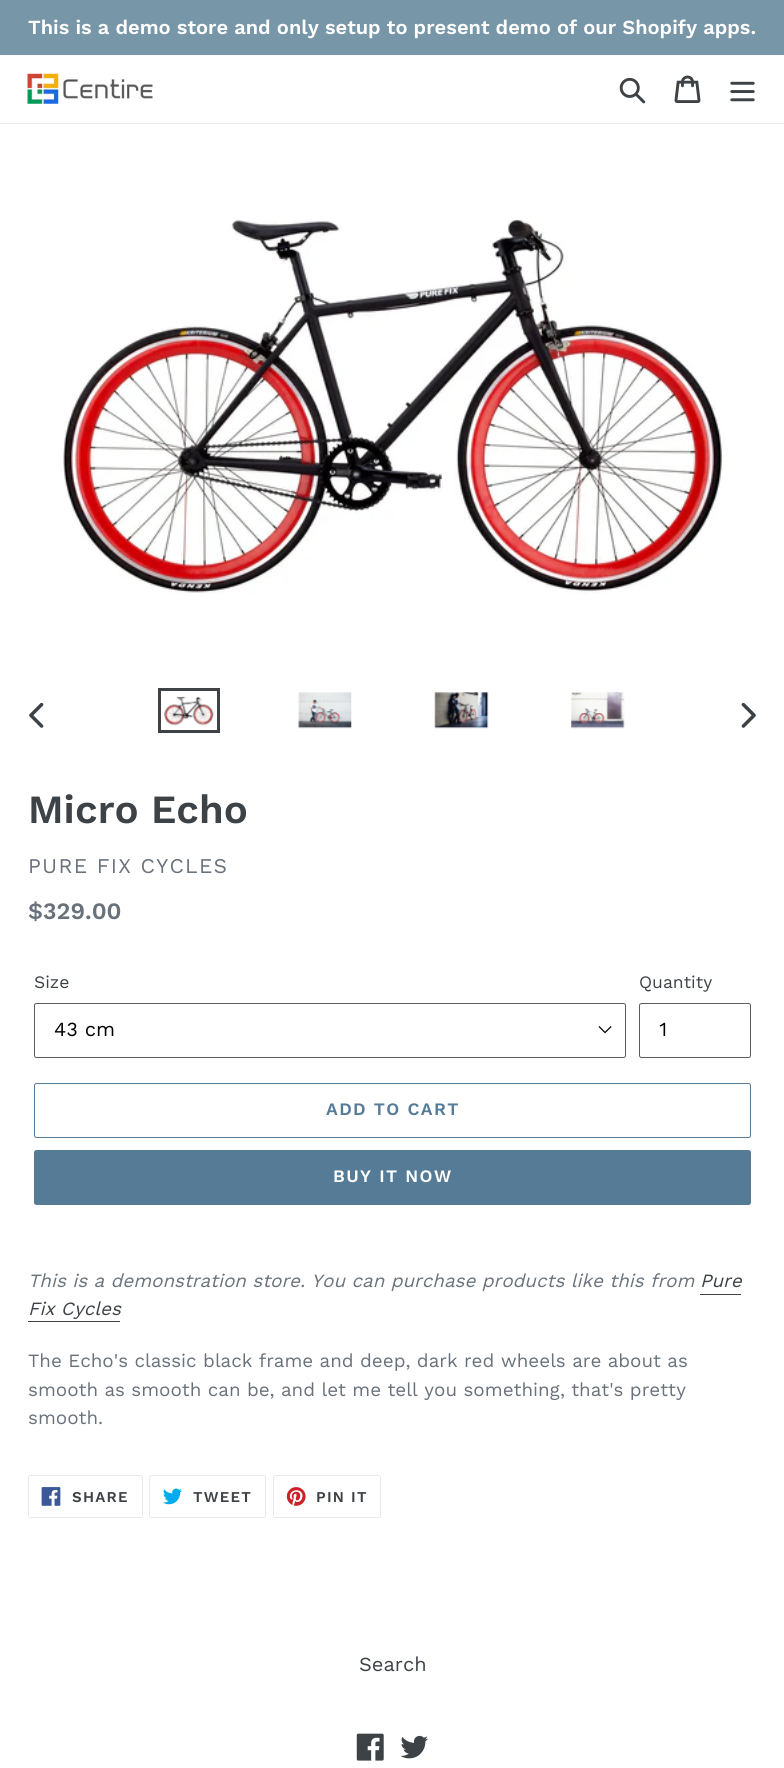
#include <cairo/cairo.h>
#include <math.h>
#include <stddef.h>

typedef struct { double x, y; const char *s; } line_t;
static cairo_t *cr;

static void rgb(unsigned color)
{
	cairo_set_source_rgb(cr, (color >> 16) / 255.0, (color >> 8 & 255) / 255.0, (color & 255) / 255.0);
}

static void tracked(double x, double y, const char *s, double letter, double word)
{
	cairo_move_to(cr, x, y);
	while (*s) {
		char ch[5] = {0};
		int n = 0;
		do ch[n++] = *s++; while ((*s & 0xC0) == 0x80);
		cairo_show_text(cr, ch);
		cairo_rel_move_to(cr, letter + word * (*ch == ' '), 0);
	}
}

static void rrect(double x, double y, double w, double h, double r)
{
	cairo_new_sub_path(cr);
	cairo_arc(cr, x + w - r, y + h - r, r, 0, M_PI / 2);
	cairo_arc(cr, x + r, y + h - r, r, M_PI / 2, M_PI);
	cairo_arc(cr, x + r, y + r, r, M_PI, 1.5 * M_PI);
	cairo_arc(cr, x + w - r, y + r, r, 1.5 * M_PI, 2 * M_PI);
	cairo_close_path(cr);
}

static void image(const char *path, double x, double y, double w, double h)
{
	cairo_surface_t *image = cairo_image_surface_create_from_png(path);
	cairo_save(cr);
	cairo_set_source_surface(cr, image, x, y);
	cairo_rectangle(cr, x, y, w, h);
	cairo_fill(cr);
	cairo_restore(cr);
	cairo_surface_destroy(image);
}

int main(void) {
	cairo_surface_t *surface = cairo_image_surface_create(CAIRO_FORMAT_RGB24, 784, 1768);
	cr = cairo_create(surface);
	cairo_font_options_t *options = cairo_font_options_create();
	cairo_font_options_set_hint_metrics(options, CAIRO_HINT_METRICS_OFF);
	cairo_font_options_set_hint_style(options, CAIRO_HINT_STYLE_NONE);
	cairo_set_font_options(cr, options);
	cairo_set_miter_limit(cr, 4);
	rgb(0xffffff);
	cairo_paint(cr);
	rgb(0x7796a8);
	cairo_rectangle(cr, 0, 0, 784, 55);
	cairo_fill(cr);
	rgb(0xe8e9eb);
	cairo_rectangle(cr, 0, 123, 784, 1);
	cairo_fill(cr);
	image("img/1.png", 27, 73, 126, 31);
	image("img/2.png", 619, 77, 27, 27);
	image("img/3.png", 674, 75, 27, 28);
	image("img/4.png", 730, 81, 25, 21);
	image("img/5.png", 63, 219, 662, 375);
	image("img/6.png", 29, 703, 15, 25);
	cairo_rectangle(cr, 159.5, 689.5, 59, 42);
	rgb(0x3d4246);
	cairo_set_line_width(cr, 3);
	cairo_stroke(cr);
	image("img/7.png", 164, 696, 50, 30);
	image("img/8.png", 298, 692, 54, 37);
	image("img/9.png", 434, 692, 55, 37);
	image("img/10.png", 571, 692, 54, 37);
	image("img/11.png", 741, 703, 15, 25);
	image("img/12.png", 598, 1026, 14, 8);
	rrect(34.5, 1003.5, 591, 54, 2);
	rgb(0x5a5e62);
	cairo_set_line_width(cr, 1);
	cairo_stroke(cr);
	rrect(639.5, 1003.5, 111, 54, 2);
	cairo_stroke(cr);
	rrect(34.5, 1083.5, 716, 54, 2);
	rgb(0x557b97);
	cairo_stroke(cr);
	rrect(34, 1150, 717, 55, 2.5);
	cairo_fill(cr);
	rgb(0x3d4246);
	cairo_rectangle(cr, 700, 1294, 41, 1);
	cairo_fill(cr);
	cairo_rectangle(cr, 28, 1321, 92, 1);
	cairo_fill(cr);
	rrect(28.5, 1475.5, 114, 42, 2);
	rgb(0xe8e9eb);
	cairo_stroke(cr);
	image("img/13.png", 41, 1487, 20, 19);
	rrect(149.5, 1475.5, 116, 42, 2);
	cairo_stroke(cr);
	image("img/14.png", 163, 1488, 19, 17);
	rrect(273.5, 1475.5, 107, 42, 2);
	cairo_stroke(cr);
	image("img/15.png", 286, 1487, 20, 19);
	image("img/16.png", 356, 1733, 28, 28);
	image("img/17.png", 400, 1735, 28, 24);
	cairo_select_font_face(cr, "Work Sans SemiBold", CAIRO_FONT_SLANT_NORMAL, CAIRO_FONT_WEIGHT_NORMAL);
	cairo_set_font_size(cr, 20);
	rgb(0xffffff);
	cairo_move_to(cr, 28, 34);
	cairo_show_text(cr, "This is a demo store and only setup to present demo of our Shopify apps.");
	cairo_set_font_size(cr, 40);
	rgb(0x3d4246);
	cairo_move_to(cr, 28, 823);
	cairo_show_text(cr, "Micro Echo");
	cairo_select_font_face(cr, "Work Sans", CAIRO_FONT_SLANT_NORMAL, CAIRO_FONT_WEIGHT_NORMAL);
	cairo_set_font_size(cr, 21);
	rgb(0x69727b);
	tracked(28, 873, "PURE FIX CYCLES", 1.25, 0);
	cairo_select_font_face(cr, "Work Sans SemiBold", CAIRO_FONT_SLANT_NORMAL, CAIRO_FONT_WEIGHT_NORMAL);
	cairo_set_font_size(cr, 23.5);
	cairo_move_to(cr, 28, 919);
	cairo_show_text(cr, "$329.00");
	cairo_select_font_face(cr, "Work Sans", CAIRO_FONT_SLANT_NORMAL, CAIRO_FONT_WEIGHT_NORMAL);
	cairo_set_font_size(cr, 17.5);
	rgb(0x3d4246);
	cairo_move_to(cr, 34, 988);
	cairo_show_text(cr, "Size");
	cairo_set_font_size(cr, 20);
	rgb(0x000000);
	cairo_move_to(cr, 54, 1036);
	cairo_show_text(cr, "43 cm");
	cairo_set_font_size(cr, 17.5);
	rgb(0x3d4246);
	cairo_move_to(cr, 639, 988);
	cairo_show_text(cr, "Quantity");
	cairo_set_font_size(cr, 20);
	rgb(0x000000);
	cairo_move_to(cr, 659, 1036);
	cairo_show_text(cr, "1");
	cairo_select_font_face(cr, "Work Sans SemiBold", CAIRO_FONT_SLANT_NORMAL, CAIRO_FONT_WEIGHT_NORMAL);
	cairo_set_font_size(cr, 17.5);
	rgb(0x557b97);
	tracked(326, 1115, "ADD TO CART", 1.4, 0);
	rgb(0xffffff);
	tracked(333, 1182, "BUY IT NOW", 1.4, 0);
	cairo_select_font_face(cr, "Work Sans", CAIRO_FONT_SLANT_ITALIC, CAIRO_FONT_WEIGHT_NORMAL);
	cairo_set_font_size(cr, 18.75);
	rgb(0x69727b);
	cairo_move_to(cr, 28, 1287);
	cairo_show_text(cr, "This is a demonstration store. You can purchase products like this from");
	rgb(0x3d4246);
	cairo_move_to(cr, 700, 1287);
	cairo_show_text(cr, "Pure");
	cairo_move_to(cr, 28, 1315);
	cairo_show_text(cr, "Fix Cycles");
	cairo_select_font_face(cr, "Work Sans", CAIRO_FONT_SLANT_NORMAL, CAIRO_FONT_WEIGHT_NORMAL);
	rgb(0x69727b);
	{
		static const line_t items[] = {
			{28, 1367, "The Echo's classic black frame and deep, dark red wheels are about as"},
			{28, 1396, "smooth as smooth can be, and let me tell you something, that's pretty"},
			{28, 1424, "smooth."},
		};
		for (size_t i = 0; i < sizeof items / sizeof *items; i++) {
			cairo_move_to(cr, items[i].x, items[i].y);
			cairo_show_text(cr, items[i].s);
		}
	}
	cairo_select_font_face(cr, "Work Sans SemiBold", CAIRO_FONT_SLANT_NORMAL, CAIRO_FONT_WEIGHT_NORMAL);
	cairo_set_font_size(cr, 15);
	rgb(0x3d4246);
	{
		static const line_t items[] = {
			{72, 1502, "SHARE"},
			{193, 1502, "TWEET"},
			{316, 1502, "PIN IT"},
		};
		for (size_t i = 0; i < sizeof items / sizeof *items; i++) {
			tracked(items[i].x, items[i].y, items[i].s, 1.25, 0);
		}
	}
	cairo_select_font_face(cr, "Work Sans", CAIRO_FONT_SLANT_NORMAL, CAIRO_FONT_WEIGHT_NORMAL);
	cairo_set_font_size(cr, 20);
	cairo_move_to(cr, 359, 1671);
	cairo_show_text(cr, "Search");
	cairo_surface_write_to_png(surface, "page.png");
	cairo_font_options_destroy(options);
	cairo_destroy(cr);
	cairo_surface_destroy(surface);
	return 0;
}
